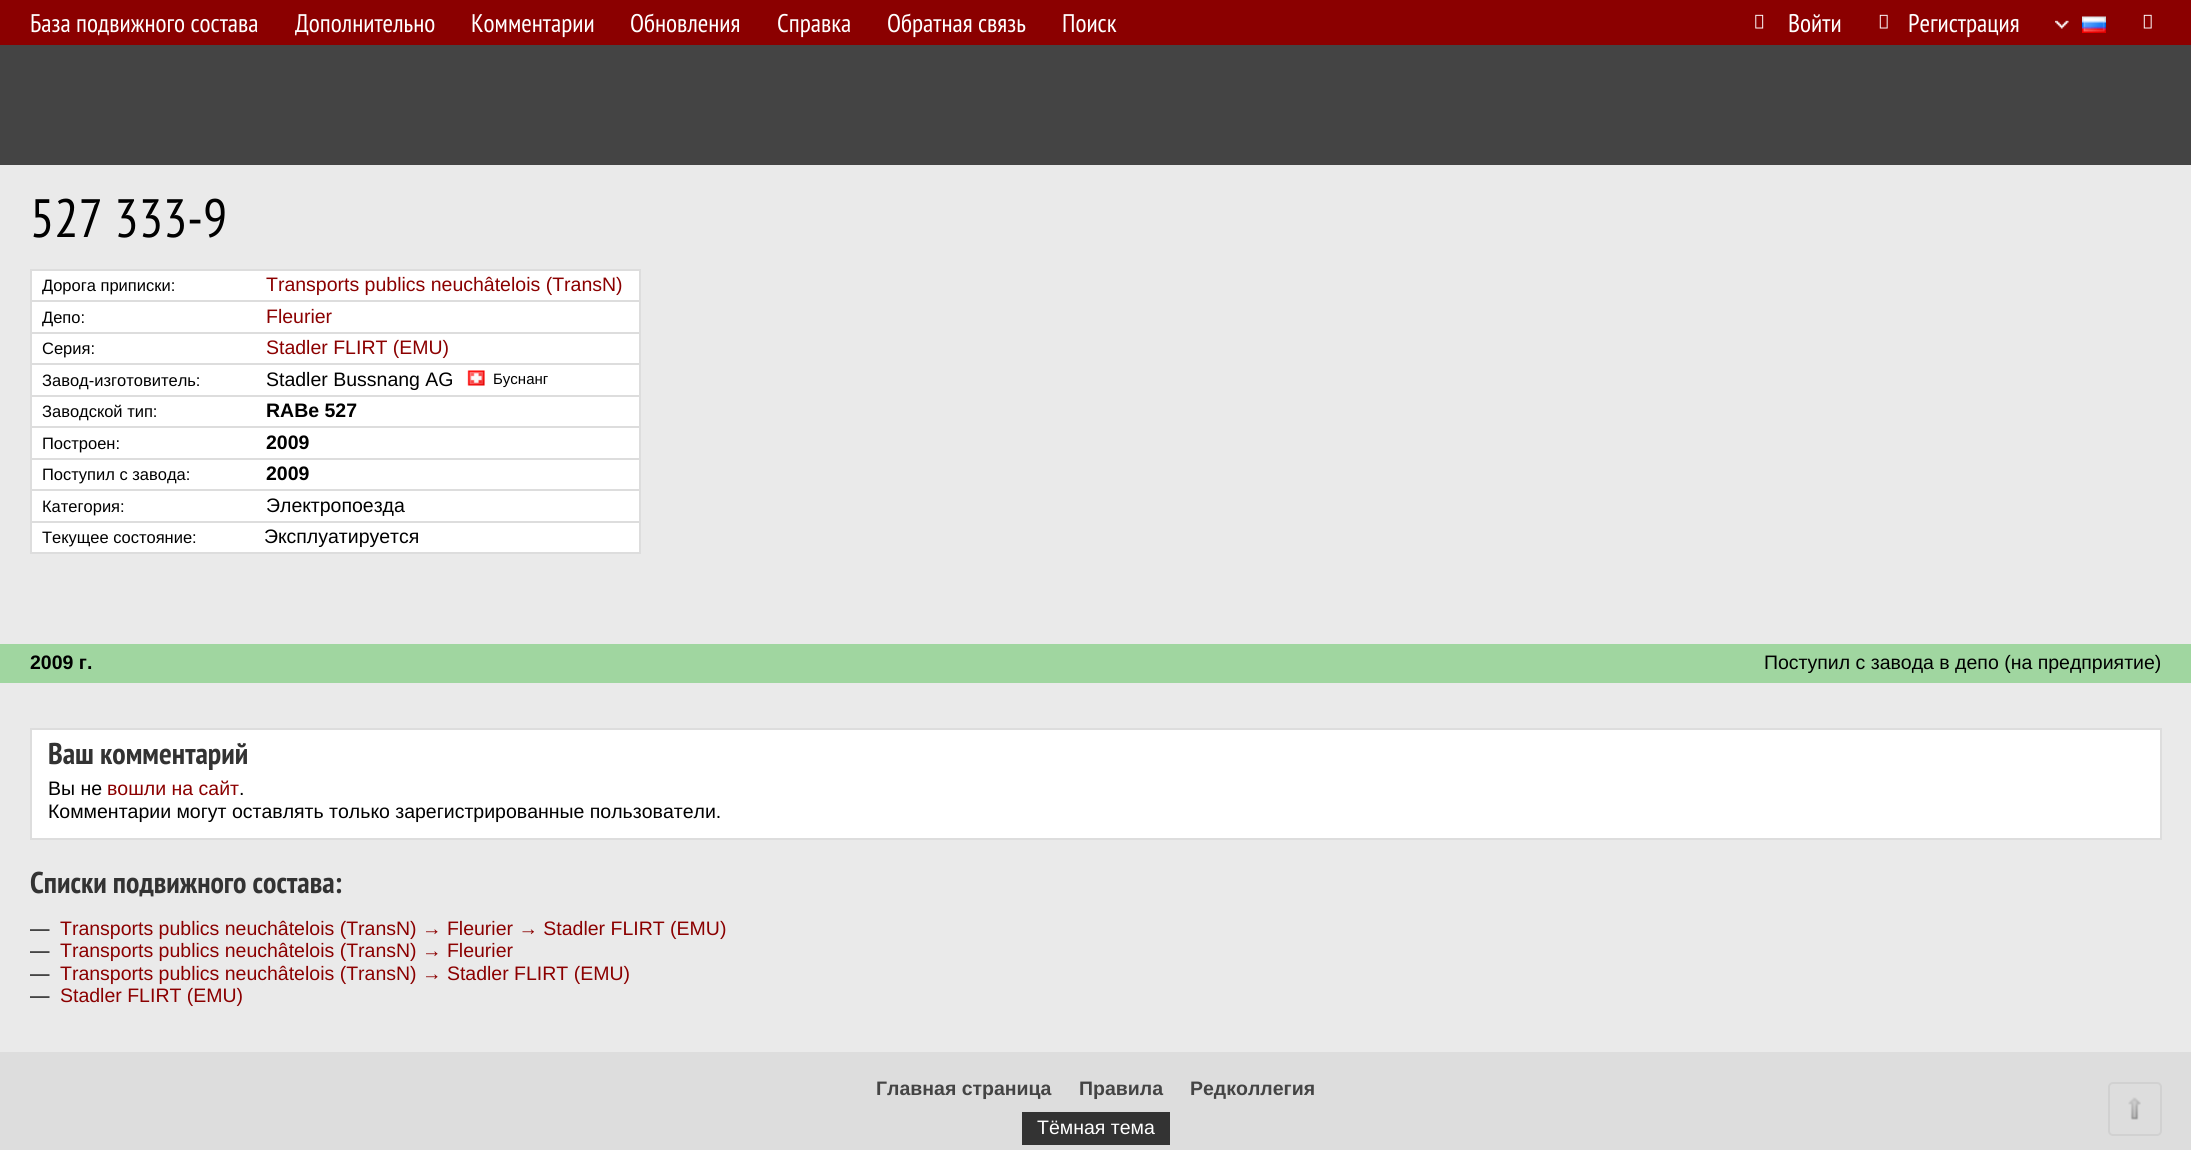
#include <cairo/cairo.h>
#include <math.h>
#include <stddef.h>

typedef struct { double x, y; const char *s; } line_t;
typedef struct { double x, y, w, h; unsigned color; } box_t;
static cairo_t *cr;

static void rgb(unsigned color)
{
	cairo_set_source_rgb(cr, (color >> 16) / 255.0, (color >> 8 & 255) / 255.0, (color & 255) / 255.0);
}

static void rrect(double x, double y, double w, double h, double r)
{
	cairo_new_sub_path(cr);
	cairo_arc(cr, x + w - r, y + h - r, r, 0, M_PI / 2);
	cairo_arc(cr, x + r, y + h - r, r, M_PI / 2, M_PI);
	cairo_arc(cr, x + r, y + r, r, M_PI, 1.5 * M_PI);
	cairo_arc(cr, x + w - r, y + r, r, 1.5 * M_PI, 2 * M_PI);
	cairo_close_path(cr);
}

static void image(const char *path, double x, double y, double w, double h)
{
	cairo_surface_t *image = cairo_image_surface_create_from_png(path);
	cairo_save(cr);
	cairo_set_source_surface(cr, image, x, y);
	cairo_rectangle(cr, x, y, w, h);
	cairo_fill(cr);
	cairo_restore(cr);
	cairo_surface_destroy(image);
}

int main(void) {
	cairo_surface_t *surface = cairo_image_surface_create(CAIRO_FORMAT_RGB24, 2191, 1150);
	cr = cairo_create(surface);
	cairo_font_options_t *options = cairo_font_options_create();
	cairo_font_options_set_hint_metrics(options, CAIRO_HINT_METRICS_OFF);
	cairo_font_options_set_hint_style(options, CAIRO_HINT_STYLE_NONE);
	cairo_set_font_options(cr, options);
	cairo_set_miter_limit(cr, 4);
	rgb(0xdddddd);
	cairo_paint(cr);
	rgb(0x8b0000);
	cairo_rectangle(cr, 0, 0, 2191, 45);
	cairo_fill(cr);
	image("img/1.png", 1755, 14, 9, 15);
	image("img/2.png", 1879, 14, 9, 15);
	image("img/3.png", 2055, 20, 14, 9);
	image("img/4.png", 2082, 16, 24, 17);
	image("img/2.png", 2143, 14, 9, 15);
	{
		static const box_t items[] = {
			{0, 45, 2191, 120, 0x444444},
			{0, 165, 2191, 887, 0xeaeaea},
			{32, 271, 607, 281, 0xffffff},
			{30, 269, 611, 2, 0xdddddd},
			{639, 269, 2, 285, 0xdddddd},
			{30, 552, 611, 2, 0xdddddd},
			{30, 269, 2, 285, 0xdddddd},
			{30, 300, 611, 2, 0xdddddd},
			{30, 332, 611, 2, 0xdddddd},
			{30, 363, 611, 2, 0xdddddd},
			{30, 395, 611, 2, 0xdddddd},
		};
		for (size_t i = 0; i < sizeof items / sizeof *items; i++) {
			rgb(items[i].color);
			cairo_rectangle(cr, items[i].x, items[i].y, items[i].w, items[i].h);
			cairo_fill(cr);
		}
	}
	image("img/5.png", 467, 370, 18, 16);
	{
		static const box_t items[] = {
			{30, 426, 611, 2, 0xdddddd},
			{30, 458, 611, 2, 0xdddddd},
			{30, 489, 611, 2, 0xdddddd},
			{30, 521, 611, 2, 0xdddddd},
			{0, 644, 2191, 39, 0xa0d6a0},
		};
		for (size_t i = 0; i < sizeof items / sizeof *items; i++) {
			rgb(items[i].color);
			cairo_rectangle(cr, items[i].x, items[i].y, items[i].w, items[i].h);
			cairo_fill(cr);
		}
	}
	rgb(0xffffff);
	cairo_rectangle(cr, 31, 729, 2130, 110);
	cairo_fill_preserve(cr);
	rgb(0xdddddd);
	cairo_stroke(cr);
	rgb(0x333333);
	cairo_rectangle(cr, 1022, 1112, 148, 33);
	cairo_fill(cr);
	image("img/6.png", 2128, 1097, 13, 23);
	rrect(2109, 1083, 52, 52, 4);
	rgb(0xd1d1d1);
	cairo_stroke(cr);
	cairo_select_font_face(cr, "PT Sans Narrow", CAIRO_FONT_SLANT_NORMAL, CAIRO_FONT_WEIGHT_NORMAL);
	cairo_set_font_size(cr, 25.5);
	rgb(0xffffff);
	{
		static const line_t items[] = {
			{30, 32, "База подвижного состава"},
			{295, 32, "Дополнительно"},
			{471, 32, "Комментарии"},
			{630, 32, "Обновления"},
			{777, 32, "Справка"},
			{887, 32, "Обратная связь"},
			{1062, 32, "Поиск"},
			{1788, 32, "Войти"},
			{1908, 32, "Регистрация"},
		};
		for (size_t i = 0; i < sizeof items / sizeof *items; i++) {
			cairo_move_to(cr, items[i].x, items[i].y);
			cairo_show_text(cr, items[i].s);
		}
	}
	cairo_set_font_size(cr, 54);
	rgb(0x000000);
	cairo_move_to(cr, 30, 237);
	cairo_show_text(cr, "527 333-9");
	cairo_select_font_face(cr, "Liberation Sans", CAIRO_FONT_SLANT_NORMAL, CAIRO_FONT_WEIGHT_NORMAL);
	cairo_set_font_size(cr, 16.5);
	cairo_move_to(cr, 42, 291);
	cairo_show_text(cr, "Дорога приписки:");
	cairo_set_font_size(cr, 19.5);
	rgb(0x8b0000);
	cairo_move_to(cr, 266, 291);
	cairo_show_text(cr, "Transports publics neuchâtelois (TransN)");
	cairo_set_font_size(cr, 16.5);
	rgb(0x000000);
	cairo_move_to(cr, 42, 323);
	cairo_show_text(cr, "Депо:");
	cairo_set_font_size(cr, 19.5);
	rgb(0x8b0000);
	cairo_move_to(cr, 266, 323);
	cairo_show_text(cr, "Fleurier");
	cairo_set_font_size(cr, 16.5);
	rgb(0x000000);
	cairo_move_to(cr, 42, 354);
	cairo_show_text(cr, "Серия:");
	cairo_set_font_size(cr, 19.5);
	rgb(0x8b0000);
	cairo_move_to(cr, 266, 354);
	cairo_show_text(cr, "Stadler FLIRT (EMU)");
	cairo_set_font_size(cr, 16.5);
	rgb(0x000000);
	cairo_move_to(cr, 42, 386);
	cairo_show_text(cr, "Завод-изготовитель:");
	cairo_set_font_size(cr, 19.5);
	cairo_move_to(cr, 266, 386);
	cairo_show_text(cr, "Stadler Bussnang AG");
	cairo_set_font_size(cr, 15);
	cairo_move_to(cr, 493, 384);
	cairo_show_text(cr, "Буснанг");
	cairo_set_font_size(cr, 16.5);
	cairo_move_to(cr, 42, 417);
	cairo_show_text(cr, "Заводской тип:");
	cairo_select_font_face(cr, "Liberation Sans", CAIRO_FONT_SLANT_NORMAL, CAIRO_FONT_WEIGHT_BOLD);
	cairo_set_font_size(cr, 19.5);
	cairo_move_to(cr, 266, 417);
	cairo_show_text(cr, "RABe 527");
	cairo_select_font_face(cr, "Liberation Sans", CAIRO_FONT_SLANT_NORMAL, CAIRO_FONT_WEIGHT_NORMAL);
	cairo_set_font_size(cr, 16.5);
	cairo_move_to(cr, 42, 449);
	cairo_show_text(cr, "Построен:");
	cairo_select_font_face(cr, "Liberation Sans", CAIRO_FONT_SLANT_NORMAL, CAIRO_FONT_WEIGHT_BOLD);
	cairo_set_font_size(cr, 19.5);
	cairo_move_to(cr, 266, 449);
	cairo_show_text(cr, "2009");
	cairo_select_font_face(cr, "Liberation Sans", CAIRO_FONT_SLANT_NORMAL, CAIRO_FONT_WEIGHT_NORMAL);
	cairo_set_font_size(cr, 16.5);
	cairo_move_to(cr, 42, 480);
	cairo_show_text(cr, "Поступил c завода:");
	cairo_select_font_face(cr, "Liberation Sans", CAIRO_FONT_SLANT_NORMAL, CAIRO_FONT_WEIGHT_BOLD);
	cairo_set_font_size(cr, 19.5);
	cairo_move_to(cr, 266, 480);
	cairo_show_text(cr, "2009");
	cairo_select_font_face(cr, "Liberation Sans", CAIRO_FONT_SLANT_NORMAL, CAIRO_FONT_WEIGHT_NORMAL);
	cairo_set_font_size(cr, 16.5);
	cairo_move_to(cr, 42, 512);
	cairo_show_text(cr, "Категория:");
	cairo_set_font_size(cr, 19.5);
	cairo_move_to(cr, 266, 512);
	cairo_show_text(cr, "Электропоезда");
	cairo_set_font_size(cr, 16.5);
	cairo_move_to(cr, 42, 543);
	cairo_show_text(cr, "Текущее состояние:");
	cairo_set_font_size(cr, 19.5);
	cairo_move_to(cr, 264, 543);
	cairo_show_text(cr, "Эксплуатируется");
	cairo_select_font_face(cr, "Liberation Sans", CAIRO_FONT_SLANT_NORMAL, CAIRO_FONT_WEIGHT_BOLD);
	cairo_move_to(cr, 30, 669);
	cairo_show_text(cr, "2009 г.");
	cairo_select_font_face(cr, "Liberation Sans", CAIRO_FONT_SLANT_NORMAL, CAIRO_FONT_WEIGHT_NORMAL);
	cairo_move_to(cr, 1764, 669);
	cairo_show_text(cr, "Поступил c завода в депо (на предприятие)");
	cairo_select_font_face(cr, "PT Sans Narrow", CAIRO_FONT_SLANT_NORMAL, CAIRO_FONT_WEIGHT_BOLD);
	cairo_set_font_size(cr, 30);
	rgb(0x333333);
	cairo_move_to(cr, 48, 764);
	cairo_show_text(cr, "Ваш комментарий");
	cairo_select_font_face(cr, "Liberation Sans", CAIRO_FONT_SLANT_NORMAL, CAIRO_FONT_WEIGHT_NORMAL);
	cairo_set_font_size(cr, 19.5);
	rgb(0x000000);
	cairo_move_to(cr, 48, 795);
	cairo_show_text(cr, "Вы не");
	rgb(0x8b0000);
	cairo_move_to(cr, 107, 795);
	cairo_show_text(cr, "вошли на сайт");
	rgb(0x000000);
	cairo_move_to(cr, 239, 795);
	cairo_show_text(cr, ".");
	cairo_move_to(cr, 48, 818);
	cairo_show_text(cr, "Комментарии могут оставлять только зарегистрированные пользователи.");
	cairo_select_font_face(cr, "PT Sans Narrow", CAIRO_FONT_SLANT_NORMAL, CAIRO_FONT_WEIGHT_BOLD);
	cairo_set_font_size(cr, 30);
	rgb(0x333333);
	cairo_move_to(cr, 30, 893);
	cairo_show_text(cr, "Cписки подвижного состава:");
	cairo_select_font_face(cr, "Liberation Sans", CAIRO_FONT_SLANT_NORMAL, CAIRO_FONT_WEIGHT_NORMAL);
	cairo_set_font_size(cr, 19.5);
	rgb(0x000000);
	cairo_move_to(cr, 30, 935);
	cairo_show_text(cr, "—");
	rgb(0x8b0000);
	cairo_move_to(cr, 60, 935);
	cairo_show_text(cr, "Transports publics neuchâtelois (TransN) → Fleurier → Stadler FLIRT (EMU)");
	rgb(0x000000);
	cairo_move_to(cr, 30, 957);
	cairo_show_text(cr, "—");
	rgb(0x8b0000);
	cairo_move_to(cr, 60, 957);
	cairo_show_text(cr, "Transports publics neuchâtelois (TransN) → Fleurier");
	rgb(0x000000);
	cairo_move_to(cr, 30, 980);
	cairo_show_text(cr, "—");
	rgb(0x8b0000);
	cairo_move_to(cr, 60, 980);
	cairo_show_text(cr, "Transports publics neuchâtelois (TransN) → Stadler FLIRT (EMU)");
	rgb(0x000000);
	cairo_move_to(cr, 30, 1002);
	cairo_show_text(cr, "—");
	rgb(0x8b0000);
	cairo_move_to(cr, 60, 1002);
	cairo_show_text(cr, "Stadler FLIRT (EMU)");
	cairo_select_font_face(cr, "Liberation Sans", CAIRO_FONT_SLANT_NORMAL, CAIRO_FONT_WEIGHT_BOLD);
	rgb(0x444444);
	{
		static const line_t items[] = {
			{876, 1095, "Главная страница"},
			{1079, 1095, "Правила"},
			{1190, 1095, "Редколлегия"},
		};
		for (size_t i = 0; i < sizeof items / sizeof *items; i++) {
			cairo_move_to(cr, items[i].x, items[i].y);
			cairo_show_text(cr, items[i].s);
		}
	}
	cairo_select_font_face(cr, "Liberation Sans", CAIRO_FONT_SLANT_NORMAL, CAIRO_FONT_WEIGHT_NORMAL);
	rgb(0xffffff);
	cairo_move_to(cr, 1037, 1134);
	cairo_show_text(cr, "Тёмная тема");
	cairo_surface_write_to_png(surface, "page.png");
	cairo_font_options_destroy(options);
	cairo_destroy(cr);
	cairo_surface_destroy(surface);
	return 0;
}
